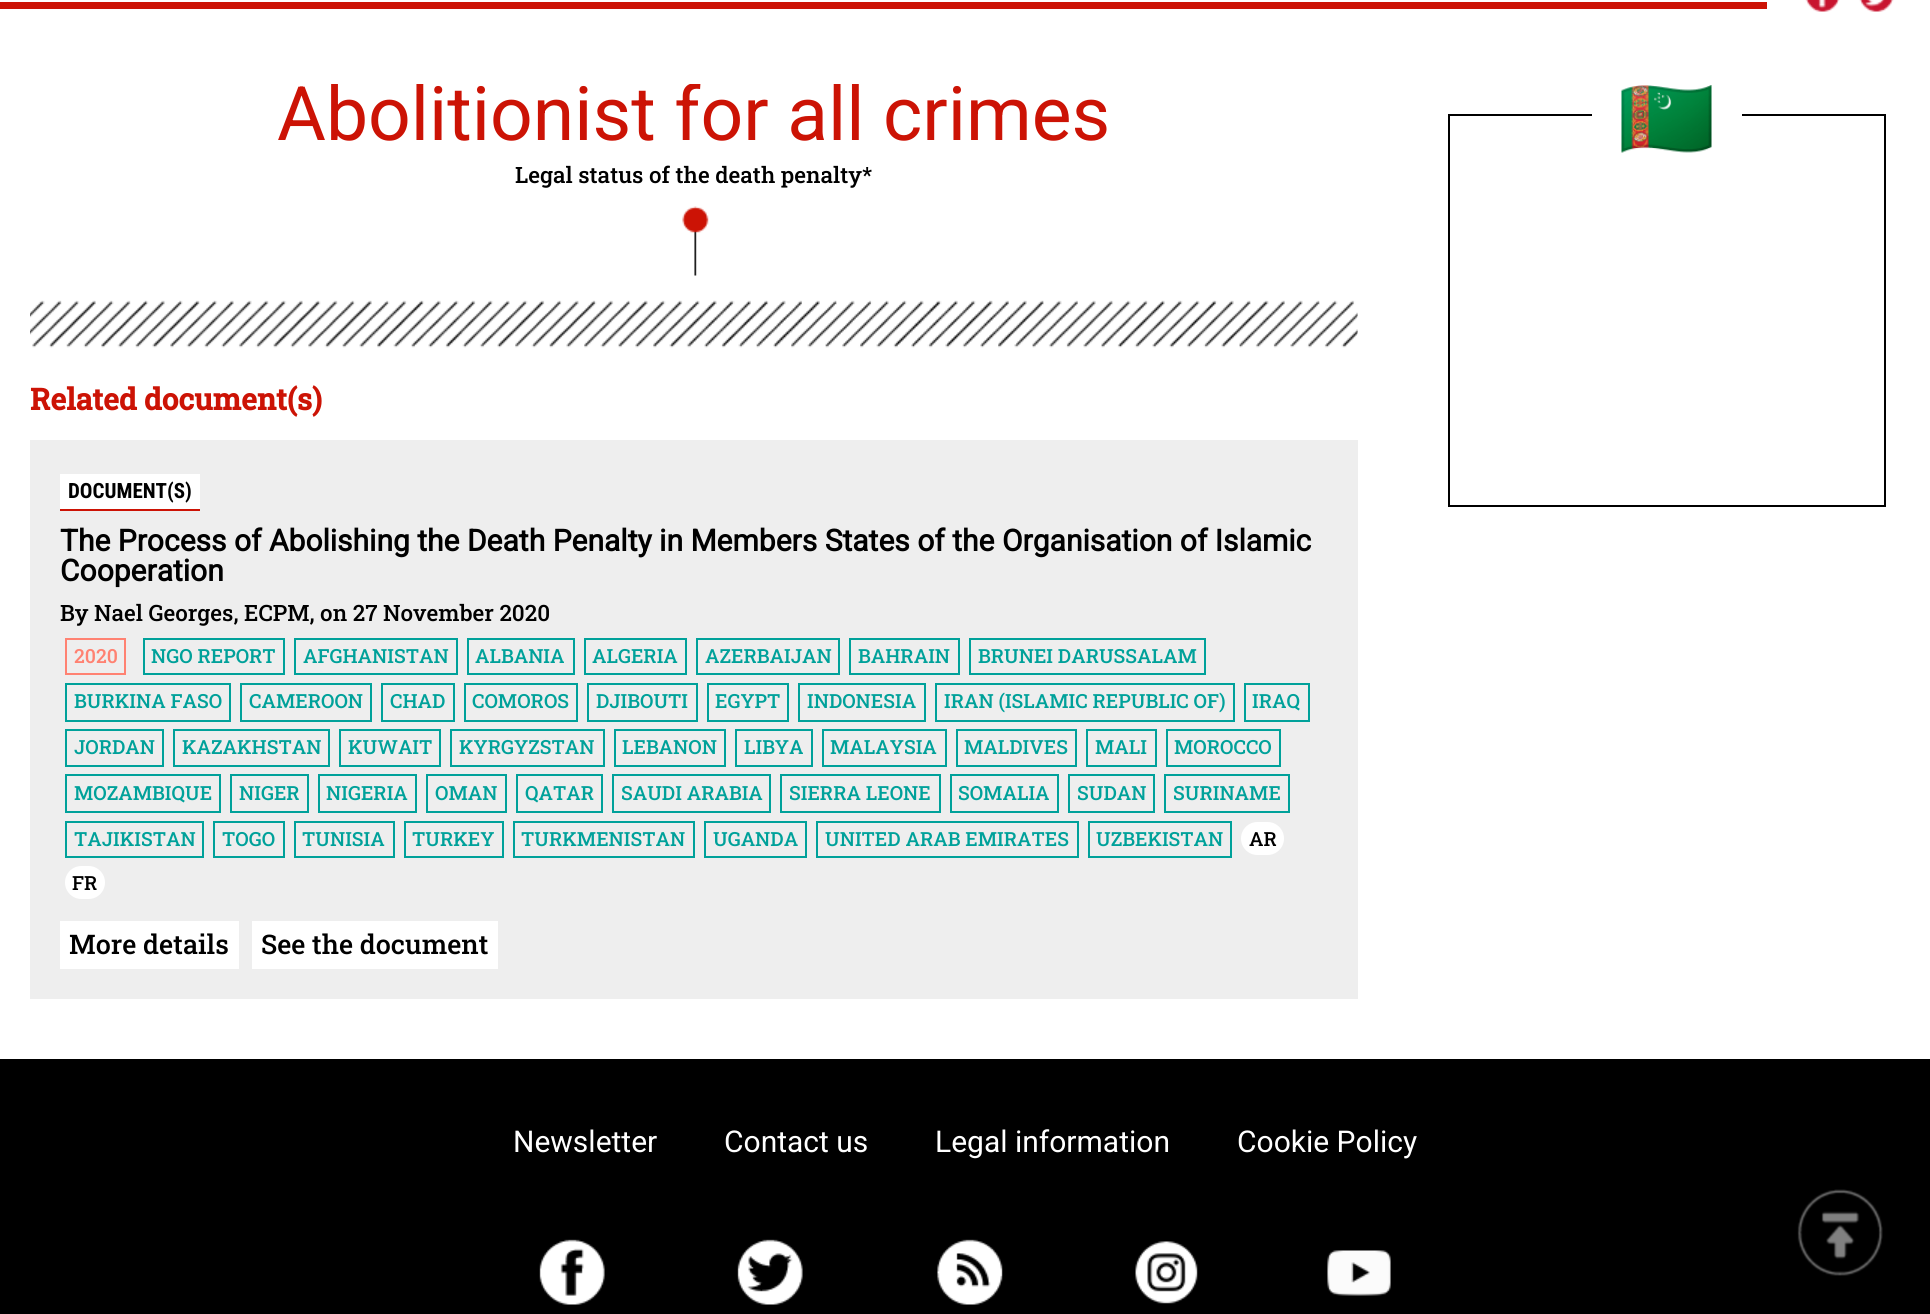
#include <cairo/cairo.h>
#include <math.h>
#include <stddef.h>

typedef struct { double x, y; const char *s; } line_t;
typedef struct { double x, y, w, h; unsigned color; } box_t;
static cairo_t *cr;

static void rgb(unsigned color)
{
	cairo_set_source_rgb(cr, (color >> 16) / 255.0, (color >> 8 & 255) / 255.0, (color & 255) / 255.0);
}

static void rrect(double x, double y, double w, double h, double r)
{
	cairo_new_sub_path(cr);
	cairo_arc(cr, x + w - r, y + h - r, r, 0, M_PI / 2);
	cairo_arc(cr, x + r, y + h - r, r, M_PI / 2, M_PI);
	cairo_arc(cr, x + r, y + r, r, M_PI, 1.5 * M_PI);
	cairo_arc(cr, x + w - r, y + r, r, 1.5 * M_PI, 2 * M_PI);
	cairo_close_path(cr);
}

static void image(const char *path, double x, double y, double w, double h)
{
	cairo_surface_t *image = cairo_image_surface_create_from_png(path);
	cairo_save(cr);
	cairo_set_source_surface(cr, image, x, y);
	cairo_rectangle(cr, x, y, w, h);
	cairo_fill(cr);
	cairo_restore(cr);
	cairo_surface_destroy(image);
}

int main(void) {
	cairo_surface_t *surface = cairo_image_surface_create(CAIRO_FORMAT_RGB24, 1930, 1314);
	cr = cairo_create(surface);
	cairo_font_options_t *options = cairo_font_options_create();
	cairo_font_options_set_hint_metrics(options, CAIRO_HINT_METRICS_OFF);
	cairo_font_options_set_hint_style(options, CAIRO_HINT_STYLE_NONE);
	cairo_set_font_options(cr, options);
	cairo_set_miter_limit(cr, 4);
	rgb(0xffffff);
	cairo_paint(cr);
	rgb(0xcc1305);
	cairo_rectangle(cr, 0, 2, 1767, 7);
	cairo_fill(cr);
	image("img/1.png", 1805, 0, 35, 12);
	image("img/2.png", 1859, 0, 35, 12);
	image("img/3.png", 682, 206, 27, 70);
	image("img/4.png", 30, 300, 1328, 48);
	{
		static const box_t items[] = {
			{30, 440, 1328, 559, 0xeeeeee},
			{60, 474, 140, 35, 0xffffff},
			{60, 509, 140, 2, 0xcc1305},
		};
		for (size_t i = 0; i < sizeof items / sizeof *items; i++) {
			rgb(items[i].color);
			cairo_rectangle(cr, items[i].x, items[i].y, items[i].w, items[i].h);
			cairo_fill(cr);
		}
	}
	cairo_rectangle(cr, 66, 639, 59, 35);
	rgb(0xff8272);
	cairo_stroke(cr);
	cairo_rectangle(cr, 144, 639, 140, 35);
	rgb(0x00a19a);
	cairo_stroke(cr);
	cairo_rectangle(cr, 295, 639, 162, 35);
	cairo_stroke(cr);
	cairo_rectangle(cr, 468, 639, 106, 35);
	cairo_stroke(cr);
	cairo_rectangle(cr, 585, 639, 101, 35);
	cairo_stroke(cr);
	cairo_rectangle(cr, 697, 639, 142, 35);
	cairo_stroke(cr);
	cairo_rectangle(cr, 850, 639, 109, 35);
	cairo_stroke(cr);
	cairo_rectangle(cr, 970, 639, 235, 35);
	cairo_stroke(cr);
	cairo_rectangle(cr, 66, 684, 164, 37);
	cairo_stroke(cr);
	cairo_rectangle(cr, 241, 684, 130, 37);
	cairo_stroke(cr);
	cairo_rectangle(cr, 382, 684, 72, 37);
	cairo_stroke(cr);
	cairo_rectangle(cr, 465, 684, 112, 37);
	cairo_stroke(cr);
	cairo_rectangle(cr, 588, 684, 109, 37);
	cairo_stroke(cr);
	cairo_rectangle(cr, 708, 684, 80, 37);
	cairo_stroke(cr);
	cairo_rectangle(cr, 799, 684, 126, 37);
	cairo_stroke(cr);
	cairo_rectangle(cr, 936, 684, 298, 37);
	cairo_stroke(cr);
	cairo_rectangle(cr, 1245, 684, 64, 37);
	cairo_stroke(cr);
	cairo_rectangle(cr, 66, 730, 97, 36);
	cairo_stroke(cr);
	cairo_rectangle(cr, 174, 730, 155, 36);
	cairo_stroke(cr);
	cairo_rectangle(cr, 340, 730, 100, 36);
	cairo_stroke(cr);
	cairo_rectangle(cr, 451, 730, 153, 36);
	cairo_stroke(cr);
	cairo_rectangle(cr, 615, 730, 110, 36);
	cairo_stroke(cr);
	cairo_rectangle(cr, 736, 730, 76, 36);
	cairo_stroke(cr);
	cairo_rectangle(cr, 823, 730, 123, 36);
	cairo_stroke(cr);
	cairo_rectangle(cr, 957, 730, 119, 36);
	cairo_stroke(cr);
	cairo_rectangle(cr, 1087, 730, 69, 36);
	cairo_stroke(cr);
	cairo_rectangle(cr, 1167, 730, 113, 36);
	cairo_stroke(cr);
	cairo_rectangle(cr, 66, 775, 154, 37);
	cairo_stroke(cr);
	cairo_rectangle(cr, 231, 775, 77, 37);
	cairo_stroke(cr);
	cairo_rectangle(cr, 319, 775, 97, 37);
	cairo_stroke(cr);
	cairo_rectangle(cr, 427, 775, 79, 37);
	cairo_stroke(cr);
	cairo_rectangle(cr, 517, 775, 85, 37);
	cairo_stroke(cr);
	cairo_rectangle(cr, 613, 775, 157, 37);
	cairo_stroke(cr);
	cairo_rectangle(cr, 781, 775, 159, 37);
	cairo_stroke(cr);
	cairo_rectangle(cr, 951, 775, 107, 37);
	cairo_stroke(cr);
	cairo_rectangle(cr, 1069, 775, 85, 37);
	cairo_stroke(cr);
	cairo_rectangle(cr, 1165, 775, 124, 37);
	cairo_stroke(cr);
	cairo_rectangle(cr, 66, 822, 137, 35);
	cairo_stroke(cr);
	cairo_rectangle(cr, 214, 822, 70, 35);
	cairo_stroke(cr);
	cairo_rectangle(cr, 295, 822, 99, 35);
	cairo_stroke(cr);
	cairo_rectangle(cr, 405, 822, 98, 35);
	cairo_stroke(cr);
	cairo_rectangle(cr, 514, 822, 180, 35);
	cairo_stroke(cr);
	cairo_rectangle(cr, 705, 822, 101, 35);
	cairo_stroke(cr);
	cairo_rectangle(cr, 817, 822, 261, 35);
	cairo_stroke(cr);
	cairo_rectangle(cr, 1089, 822, 142, 35);
	cairo_stroke(cr);
	rgb(0xffffff);
	rrect(1241, 822, 43, 33, 16.5);
	cairo_fill(cr);
	rrect(65, 866, 40, 33, 16.5);
	cairo_fill(cr);
	cairo_rectangle(cr, 60, 921, 179, 48);
	cairo_fill(cr);
	cairo_rectangle(cr, 252, 921, 246, 48);
	cairo_fill(cr);
	cairo_rectangle(cr, 1449, 115, 436, 391);
	rgb(0x000000);
	cairo_stroke(cr);
	rgb(0xffffff);
	cairo_rectangle(cr, 1592, 114, 150, 2);
	cairo_fill(cr);
	image("img/5.png", 1621, 85, 91, 68);
	rgb(0x000000);
	cairo_rectangle(cr, 0, 1059, 1930, 255);
	cairo_fill(cr);
	image("img/6.png", 539, 1239, 66, 66);
	image("img/7.png", 737, 1239, 66, 66);
	image("img/8.png", 937, 1239, 66, 66);
	image("img/9.png", 1135, 1241, 63, 63);
	image("img/10.png", 1327, 1250, 64, 46);
	image("img/11.png", 1797, 1189, 86, 87);
	cairo_save(cr);
	cairo_rectangle(cr, 30, 84, 1403, 953);
	cairo_clip(cr);
	cairo_select_font_face(cr, "Roboto", CAIRO_FONT_SLANT_NORMAL, CAIRO_FONT_WEIGHT_NORMAL);
	cairo_set_font_size(cr, 75);
	rgb(0xcc1305);
	cairo_move_to(cr, 277, 140);
	cairo_show_text(cr, "Abolitionist for all crimes");
	cairo_restore(cr);
	cairo_select_font_face(cr, "Roboto Slab Medium", CAIRO_FONT_SLANT_NORMAL, CAIRO_FONT_WEIGHT_NORMAL);
	cairo_set_font_size(cr, 22.5);
	cairo_move_to(cr, 515, 183);
	cairo_show_text(cr, "Legal status of the death penalty*");
	cairo_select_font_face(cr, "Roboto Slab", CAIRO_FONT_SLANT_NORMAL, CAIRO_FONT_WEIGHT_BOLD);
	cairo_set_font_size(cr, 30);
	rgb(0xcc1305);
	cairo_move_to(cr, 30, 410);
	cairo_show_text(cr, "Related document(s)");
	cairo_select_font_face(cr, "Roboto Condensed", CAIRO_FONT_SLANT_NORMAL, CAIRO_FONT_WEIGHT_BOLD);
	cairo_set_font_size(cr, 21);
	rgb(0x000000);
	cairo_move_to(cr, 68, 498);
	cairo_show_text(cr, "DOCUMENT(S)");
	cairo_select_font_face(cr, "Roboto", CAIRO_FONT_SLANT_NORMAL, CAIRO_FONT_WEIGHT_BOLD);
	cairo_set_font_size(cr, 30);
	cairo_move_to(cr, 60, 551);
	cairo_show_text(cr, "The Process of Abolishing the Death Penalty in Members States of the Organisation of Islamic");
	cairo_move_to(cr, 60, 581);
	cairo_show_text(cr, "Cooperation");
	cairo_select_font_face(cr, "Roboto Slab Medium", CAIRO_FONT_SLANT_NORMAL, CAIRO_FONT_WEIGHT_NORMAL);
	cairo_set_font_size(cr, 22.5);
	cairo_move_to(cr, 60, 621);
	cairo_show_text(cr, "By Nael Georges, ECPM, on 27 November 2020");
	cairo_set_font_size(cr, 19.5);
	rgb(0xff8272);
	cairo_move_to(cr, 74, 663);
	cairo_show_text(cr, "2020");
	rgb(0x00a19a);
	{
		static const line_t items[] = {
			{151, 663, "NGO REPORT"},
			{303, 663, "AFGHANISTAN"},
			{475, 663, "ALBANIA"},
			{592, 663, "ALGERIA"},
			{705, 663, "AZERBAIJAN"},
			{858, 663, "BAHRAIN"},
			{978, 663, "BRUNEI DARUSSALAM"},
			{74, 708, "BURKINA FASO"},
			{249, 708, "CAMEROON"},
			{390, 708, "CHAD"},
			{472, 708, "COMOROS"},
			{596, 708, "DJIBOUTI"},
			{715, 708, "EGYPT"},
			{807, 708, "INDONESIA"},
			{944, 708, "IRAN (ISLAMIC REPUBLIC OF)"},
			{1252, 708, "IRAQ"},
			{74, 754, "JORDAN"},
			{182, 754, "KAZAKHSTAN"},
			{348, 754, "KUWAIT"},
			{459, 754, "KYRGYZSTAN"},
			{622, 754, "LEBANON"},
			{744, 754, "LIBYA"},
			{830, 754, "MALAYSIA"},
			{964, 754, "MALDIVES"},
			{1095, 754, "MALI"},
			{1174, 754, "MOROCCO"},
			{74, 800, "MOZAMBIQUE"},
			{239, 800, "NIGER"},
			{326, 800, "NIGERIA"},
			{435, 800, "OMAN"},
			{525, 800, "QATAR"},
			{621, 800, "SAUDI ARABIA"},
			{789, 800, "SIERRA LEONE"},
			{958, 800, "SOMALIA"},
			{1077, 800, "SUDAN"},
			{1173, 800, "SURINAME"},
			{74, 846, "TAJIKISTAN"},
			{222, 846, "TOGO"},
			{302, 846, "TUNISIA"},
			{412, 846, "TURKEY"},
			{521, 846, "TURKMENISTAN"},
			{713, 846, "UGANDA"},
			{825, 846, "UNITED ARAB EMIRATES"},
			{1096, 846, "UZBEKISTAN"},
		};
		for (size_t i = 0; i < sizeof items / sizeof *items; i++) {
			cairo_move_to(cr, items[i].x, items[i].y);
			cairo_show_text(cr, items[i].s);
		}
	}
	rgb(0x000000);
	cairo_move_to(cr, 1249, 846);
	cairo_show_text(cr, "AR");
	cairo_move_to(cr, 72, 890);
	cairo_show_text(cr, "FR");
	cairo_set_font_size(cr, 27);
	cairo_move_to(cr, 69, 954);
	cairo_show_text(cr, "More details");
	cairo_move_to(cr, 261, 954);
	cairo_show_text(cr, "See the document");
	cairo_select_font_face(cr, "Roboto", CAIRO_FONT_SLANT_NORMAL, CAIRO_FONT_WEIGHT_NORMAL);
	cairo_set_font_size(cr, 30);
	rgb(0xffffff);
	{
		static const line_t items[] = {
			{513, 1152, "Newsletter"},
			{724, 1152, "Contact us"},
			{935, 1152, "Legal information"},
			{1237, 1152, "Cookie Policy"},
		};
		for (size_t i = 0; i < sizeof items / sizeof *items; i++) {
			cairo_move_to(cr, items[i].x, items[i].y);
			cairo_show_text(cr, items[i].s);
		}
	}
	cairo_surface_write_to_png(surface, "page.png");
	cairo_font_options_destroy(options);
	cairo_destroy(cr);
	cairo_surface_destroy(surface);
	return 0;
}
